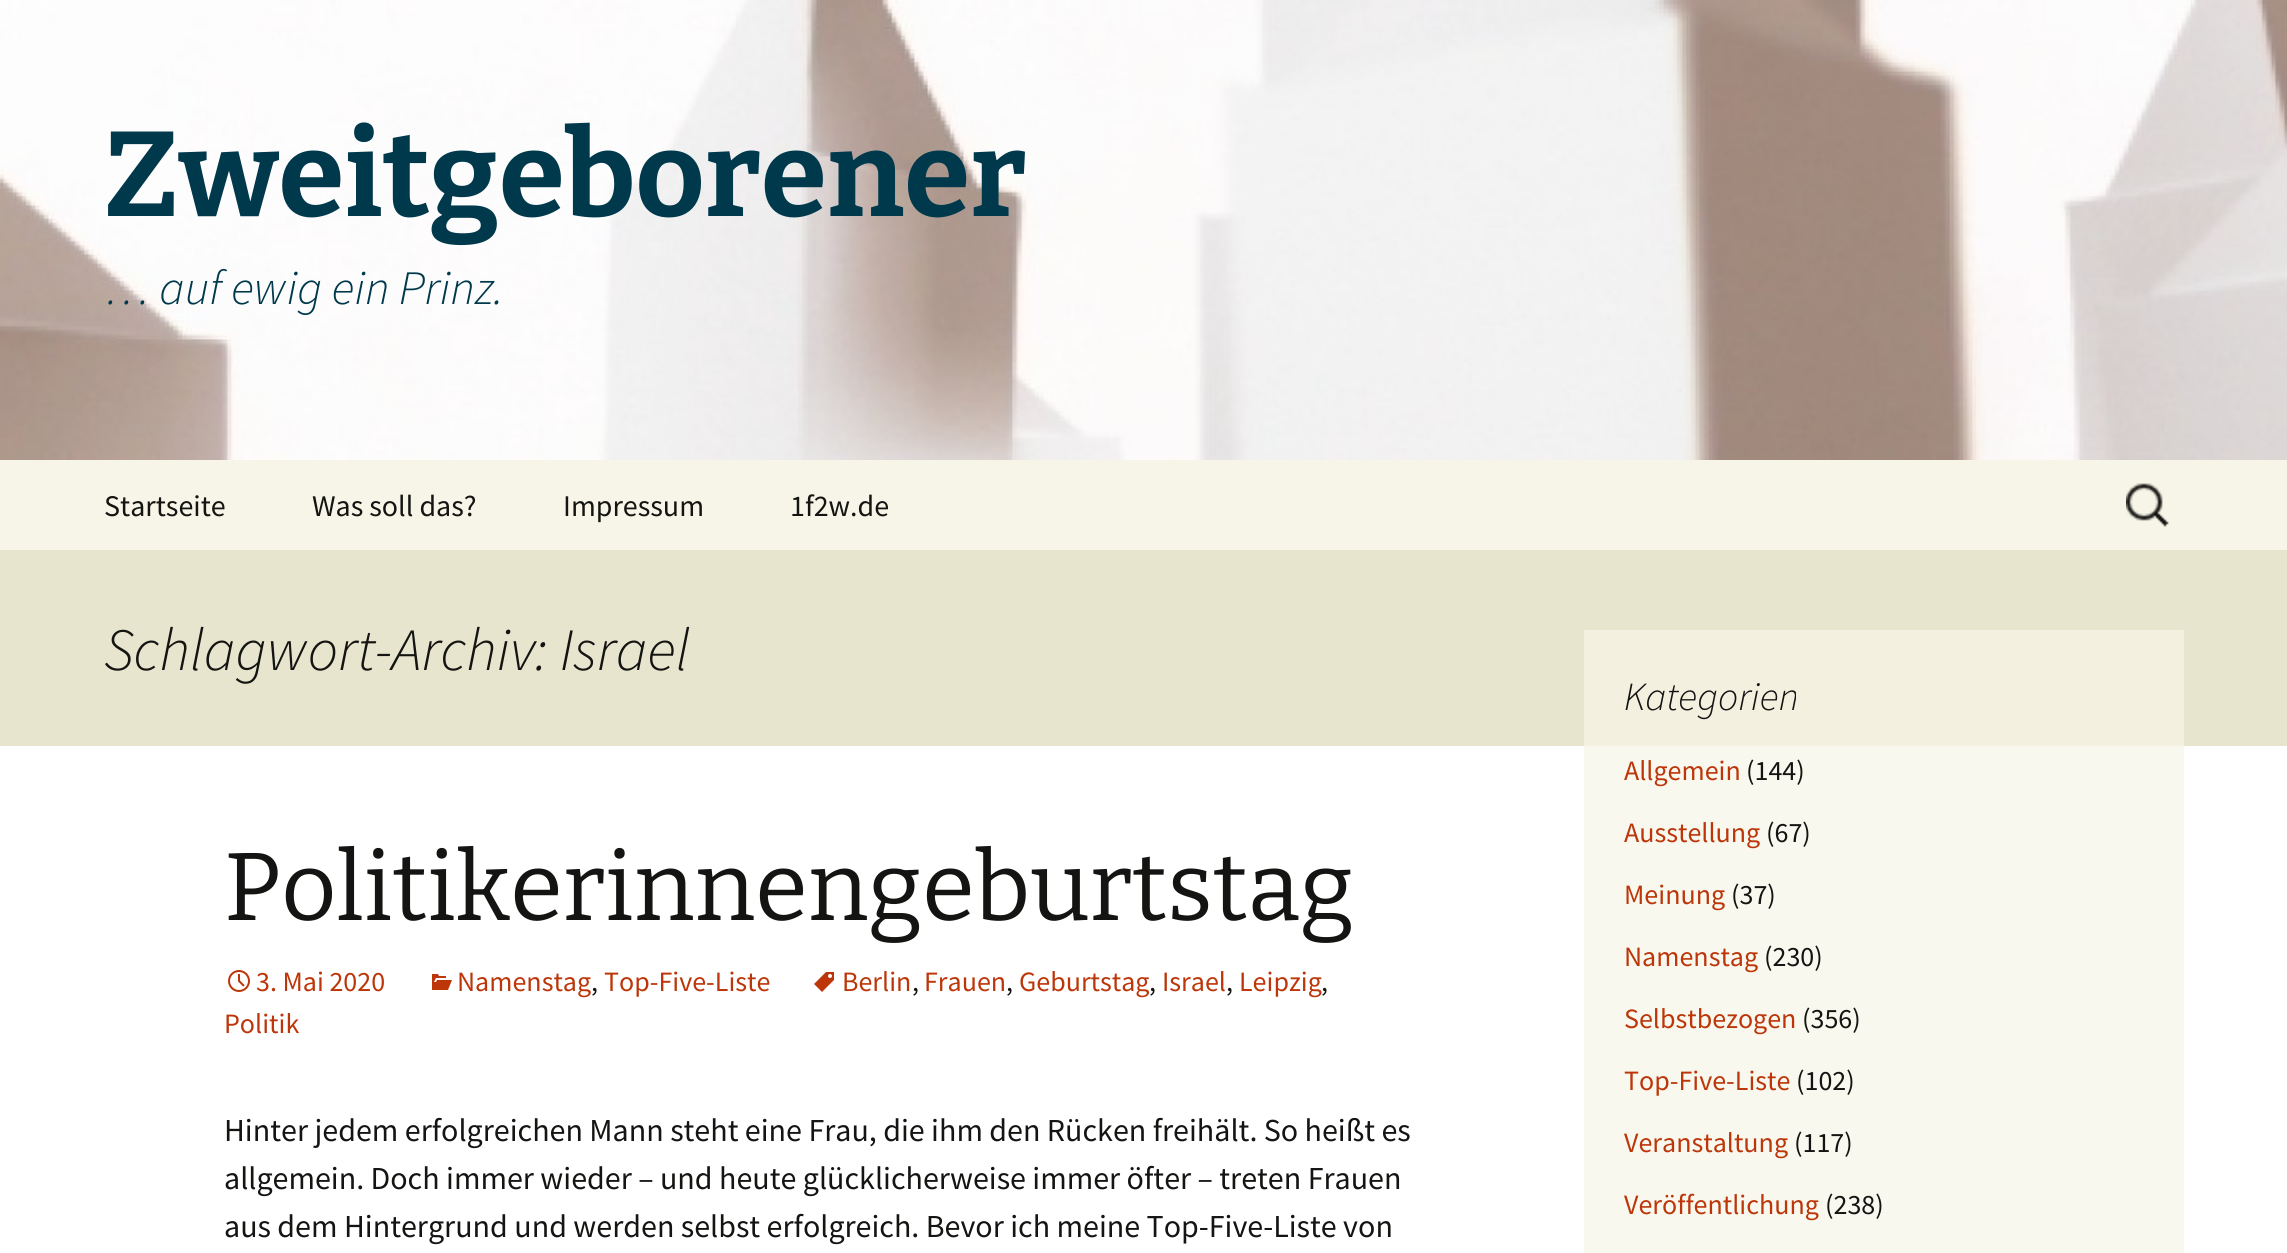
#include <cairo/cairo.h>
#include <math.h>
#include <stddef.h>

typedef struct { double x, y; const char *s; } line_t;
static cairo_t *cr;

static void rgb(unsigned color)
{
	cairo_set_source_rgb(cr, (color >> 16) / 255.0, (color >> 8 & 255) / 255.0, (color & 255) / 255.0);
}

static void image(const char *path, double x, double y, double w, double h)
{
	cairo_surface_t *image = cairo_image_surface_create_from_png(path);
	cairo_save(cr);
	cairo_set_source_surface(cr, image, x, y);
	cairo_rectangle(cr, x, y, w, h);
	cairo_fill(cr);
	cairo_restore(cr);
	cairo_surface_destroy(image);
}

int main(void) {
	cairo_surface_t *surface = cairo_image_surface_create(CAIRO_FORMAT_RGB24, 2287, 1253);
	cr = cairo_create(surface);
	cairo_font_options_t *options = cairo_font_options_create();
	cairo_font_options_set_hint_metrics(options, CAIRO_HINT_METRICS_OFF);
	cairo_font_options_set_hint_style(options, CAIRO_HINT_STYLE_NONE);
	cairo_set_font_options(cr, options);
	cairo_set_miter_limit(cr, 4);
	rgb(0xffffff);
	cairo_paint(cr);
	rgb(0xf9f8ee);
	cairo_rectangle(cr, 1584, 746, 600, 507);
	cairo_fill(cr);
	image("img/1.png", 0, 0, 2287, 460);
	rgb(0xf7f5e7);
	cairo_rectangle(cr, 0, 460, 2287, 90);
	cairo_fill(cr);
	image("img/2.png", 2126, 483, 43, 44);
	rgb(0xe8e5ce);
	cairo_rectangle(cr, 0, 550, 2287, 196);
	cairo_fill(cr);
	rgb(0xf3f0e0);
	cairo_rectangle(cr, 1584, 630, 600, 116);
	cairo_fill(cr);
	image("img/3.png", 814, 972, 20, 20);
	image("img/4.png", 228, 970, 22, 22);
	image("img/5.png", 432, 974, 20, 16);
	cairo_select_font_face(cr, "Bitter Thin", CAIRO_FONT_SLANT_NORMAL, CAIRO_FONT_WEIGHT_NORMAL);
	cairo_set_font_size(cr, 120);
	rgb(0x00384c);
	cairo_move_to(cr, 104, 216);
	cairo_show_text(cr, "Zweitgeborener");
	cairo_select_font_face(cr, "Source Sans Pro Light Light", CAIRO_FONT_SLANT_ITALIC, CAIRO_FONT_WEIGHT_NORMAL);
	cairo_set_font_size(cr, 48);
	cairo_move_to(cr, 104, 304);
	cairo_show_text(cr, "… auf ewig ein Prinz.");
	cairo_select_font_face(cr, "Source Sans Pro", CAIRO_FONT_SLANT_NORMAL, CAIRO_FONT_WEIGHT_NORMAL);
	cairo_set_font_size(cr, 30);
	rgb(0x141412);
	{
		static const line_t items[] = {
			{104, 516, "Startseite"},
			{312, 516, "Was soll das?"},
			{563, 516, "Impressum"},
			{790, 516, "1f2w.de"},
		};
		for (size_t i = 0; i < sizeof items / sizeof *items; i++) {
			cairo_move_to(cr, items[i].x, items[i].y);
			cairo_show_text(cr, items[i].s);
		}
	}
	cairo_select_font_face(cr, "Source Sans Pro Light Light", CAIRO_FONT_SLANT_ITALIC, CAIRO_FONT_WEIGHT_NORMAL);
	cairo_set_font_size(cr, 60);
	cairo_move_to(cr, 104, 670);
	cairo_show_text(cr, "Schlagwort-Archiv: Israel");
	cairo_select_font_face(cr, "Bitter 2 Thin", CAIRO_FONT_SLANT_NORMAL, CAIRO_FONT_WEIGHT_NORMAL);
	cairo_set_font_size(cr, 96);
	cairo_move_to(cr, 224, 920);
	cairo_show_text(cr, "Politikerinnengeburtstag");
	cairo_select_font_face(cr, "Source Sans Pro", CAIRO_FONT_SLANT_NORMAL, CAIRO_FONT_WEIGHT_NORMAL);
	cairo_set_font_size(cr, 28);
	rgb(0xbc360a);
	cairo_move_to(cr, 842, 991);
	cairo_show_text(cr, "Berlin");
	rgb(0x141412);
	cairo_move_to(cr, 912, 991);
	cairo_show_text(cr, ",");
	rgb(0xbc360a);
	cairo_move_to(cr, 924, 991);
	cairo_show_text(cr, "Frauen");
	rgb(0x141412);
	cairo_move_to(cr, 1006, 991);
	cairo_show_text(cr, ",");
	rgb(0xbc360a);
	cairo_move_to(cr, 1019, 991);
	cairo_show_text(cr, "Geburtstag");
	rgb(0x141412);
	cairo_move_to(cr, 1149, 991);
	cairo_show_text(cr, ",");
	rgb(0xbc360a);
	cairo_move_to(cr, 1162, 991);
	cairo_show_text(cr, "Israel");
	rgb(0x141412);
	cairo_move_to(cr, 1226, 991);
	cairo_show_text(cr, ",");
	rgb(0xbc360a);
	cairo_move_to(cr, 1239, 991);
	cairo_show_text(cr, "Leipzig");
	rgb(0x141412);
	cairo_move_to(cr, 1321, 991);
	cairo_show_text(cr, ",");
	rgb(0xbc360a);
	{
		static const line_t items[] = {
			{224, 1033, "Politik"},
			{256, 991, "3. Mai 2020"},
			{457, 991, "Namenstag"},
		};
		for (size_t i = 0; i < sizeof items / sizeof *items; i++) {
			cairo_move_to(cr, items[i].x, items[i].y);
			cairo_show_text(cr, items[i].s);
		}
	}
	rgb(0x141412);
	cairo_move_to(cr, 591, 991);
	cairo_show_text(cr, ",");
	rgb(0xbc360a);
	cairo_move_to(cr, 604, 991);
	cairo_show_text(cr, "Top-Five-Liste");
	cairo_set_font_size(cr, 32);
	rgb(0x141412);
	{
		static const line_t items[] = {
			{224, 1141, "Hinter jedem erfolgreichen Mann steht eine Frau, die ihm den Rücken freihält. So heißt es"},
			{224, 1189, "allgemein. Doch immer wieder – und heute glücklicherweise immer öfter – treten Frauen"},
			{224, 1237, "aus dem Hintergrund und werden selbst erfolgreich. Bevor ich meine Top-Five-Liste von"},
		};
		for (size_t i = 0; i < sizeof items / sizeof *items; i++) {
			cairo_move_to(cr, items[i].x, items[i].y);
			cairo_show_text(cr, items[i].s);
		}
	}
	cairo_select_font_face(cr, "Source Sans Pro Light Light", CAIRO_FONT_SLANT_ITALIC, CAIRO_FONT_WEIGHT_NORMAL);
	cairo_set_font_size(cr, 40);
	cairo_move_to(cr, 1624, 710);
	cairo_show_text(cr, "Kategorien");
	cairo_select_font_face(cr, "Source Sans Pro", CAIRO_FONT_SLANT_NORMAL, CAIRO_FONT_WEIGHT_NORMAL);
	cairo_set_font_size(cr, 28);
	rgb(0xbc360a);
	cairo_move_to(cr, 1624, 780);
	cairo_show_text(cr, "Allgemein");
	rgb(0x141412);
	cairo_move_to(cr, 1746, 780);
	cairo_show_text(cr, "(144)");
	rgb(0xbc360a);
	cairo_move_to(cr, 1624, 842);
	cairo_show_text(cr, "Ausstellung");
	rgb(0x141412);
	cairo_move_to(cr, 1766, 842);
	cairo_show_text(cr, "(67)");
	rgb(0xbc360a);
	cairo_move_to(cr, 1624, 904);
	cairo_show_text(cr, "Meinung");
	rgb(0x141412);
	cairo_move_to(cr, 1731, 904);
	cairo_show_text(cr, "(37)");
	rgb(0xbc360a);
	cairo_move_to(cr, 1624, 966);
	cairo_show_text(cr, "Namenstag");
	rgb(0x141412);
	cairo_move_to(cr, 1764, 966);
	cairo_show_text(cr, "(230)");
	rgb(0xbc360a);
	cairo_move_to(cr, 1624, 1028);
	cairo_show_text(cr, "Selbstbezogen");
	rgb(0x141412);
	cairo_move_to(cr, 1802, 1028);
	cairo_show_text(cr, "(356)");
	rgb(0xbc360a);
	cairo_move_to(cr, 1624, 1090);
	cairo_show_text(cr, "Top-Five-Liste");
	rgb(0x141412);
	cairo_move_to(cr, 1796, 1090);
	cairo_show_text(cr, "(102)");
	rgb(0xbc360a);
	cairo_move_to(cr, 1624, 1152);
	cairo_show_text(cr, "Veranstaltung");
	rgb(0x141412);
	cairo_move_to(cr, 1794, 1152);
	cairo_show_text(cr, "(117)");
	rgb(0xbc360a);
	cairo_move_to(cr, 1624, 1214);
	cairo_show_text(cr, "Veröffentlichung");
	rgb(0x141412);
	cairo_move_to(cr, 1825, 1214);
	cairo_show_text(cr, "(238)");
	cairo_surface_write_to_png(surface, "page.png");
	cairo_font_options_destroy(options);
	cairo_destroy(cr);
	cairo_surface_destroy(surface);
	return 0;
}
